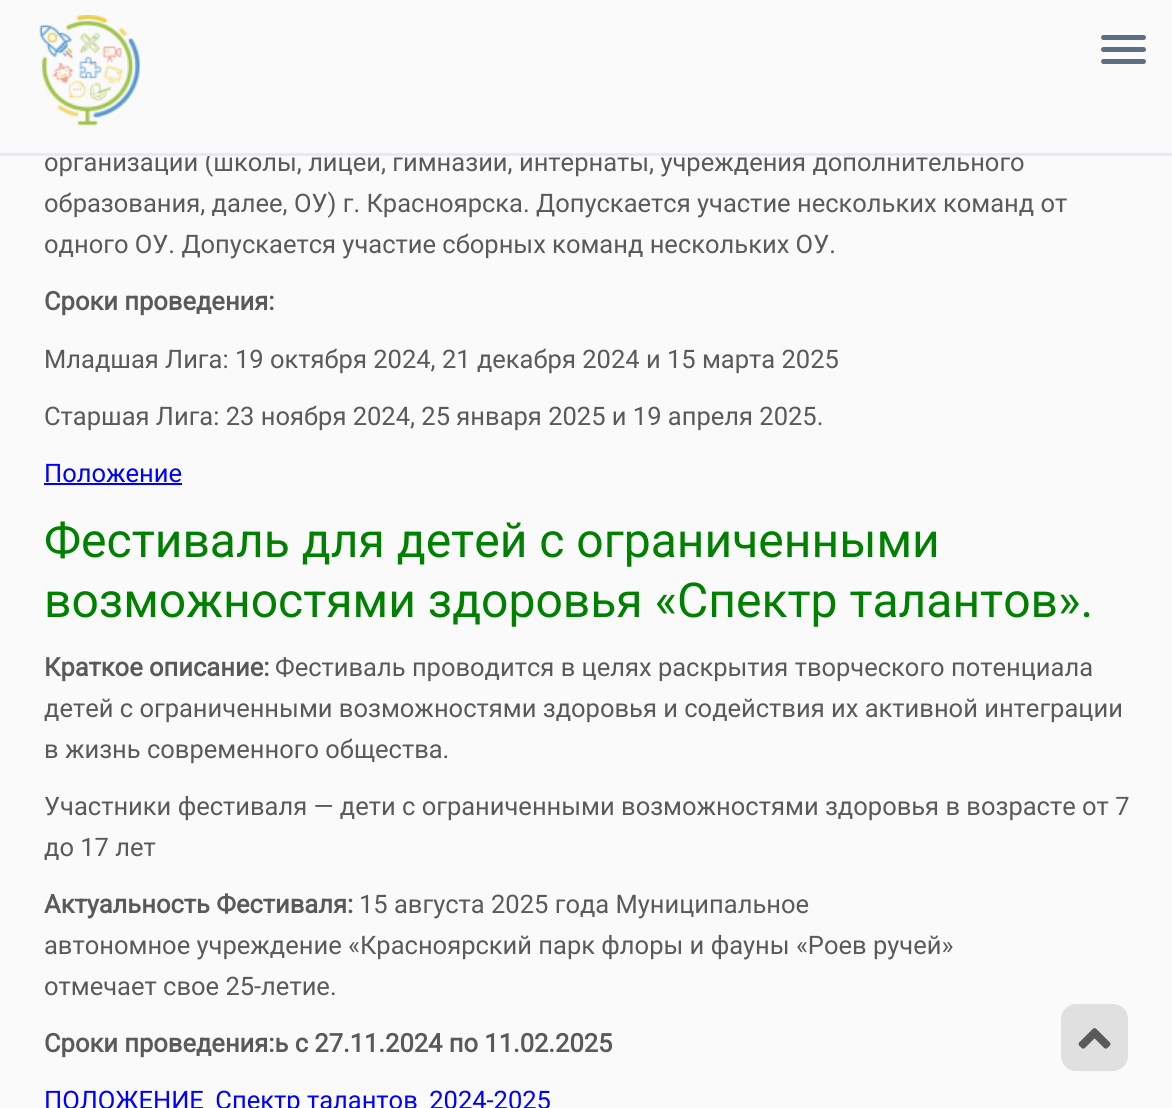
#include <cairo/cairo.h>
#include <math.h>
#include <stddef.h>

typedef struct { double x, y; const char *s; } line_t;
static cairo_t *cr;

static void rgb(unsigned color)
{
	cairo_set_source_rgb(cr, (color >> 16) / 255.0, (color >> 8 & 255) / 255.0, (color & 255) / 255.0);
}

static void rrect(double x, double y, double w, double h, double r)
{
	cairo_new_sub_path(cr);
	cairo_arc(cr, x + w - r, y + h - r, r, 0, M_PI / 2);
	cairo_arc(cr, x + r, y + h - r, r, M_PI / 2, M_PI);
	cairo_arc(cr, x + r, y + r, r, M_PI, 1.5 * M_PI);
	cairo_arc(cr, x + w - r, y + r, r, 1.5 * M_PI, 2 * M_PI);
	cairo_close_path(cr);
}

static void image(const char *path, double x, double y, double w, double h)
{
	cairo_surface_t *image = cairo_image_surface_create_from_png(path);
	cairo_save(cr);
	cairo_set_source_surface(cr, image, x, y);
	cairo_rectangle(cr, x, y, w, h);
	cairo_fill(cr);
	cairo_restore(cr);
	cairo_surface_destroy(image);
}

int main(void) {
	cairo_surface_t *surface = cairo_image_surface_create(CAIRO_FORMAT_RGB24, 1172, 1108);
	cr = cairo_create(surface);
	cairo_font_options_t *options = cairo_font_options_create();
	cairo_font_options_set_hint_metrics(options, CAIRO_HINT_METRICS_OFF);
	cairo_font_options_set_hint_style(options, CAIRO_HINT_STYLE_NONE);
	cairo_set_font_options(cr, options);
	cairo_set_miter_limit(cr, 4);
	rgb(0xfafafa);
	cairo_paint(cr);
	image("img/1.png", 38, 15, 103, 112);
	rgb(0x5f6f81);
	rrect(1101, 35, 45, 5, 2.5);
	cairo_fill(cr);
	rrect(1101, 47, 45, 5, 2.5);
	cairo_fill(cr);
	rrect(1101, 59, 45, 5, 2.5);
	cairo_fill(cr);
	rgb(0x0000ff);
	cairo_rectangle(cr, 44, 483, 138, 2);
	cairo_fill(cr);
	rgb(0xe0e0e0);
	rrect(1061, 1004, 67, 67, 15);
	cairo_fill(cr);
	image("img/2.png", 1078, 1028, 33, 21);
	cairo_select_font_face(cr, "Roboto", CAIRO_FONT_SLANT_NORMAL, CAIRO_FONT_WEIGHT_NORMAL);
	cairo_set_font_size(cr, 25.5);
	rgb(0x5a5a5a);
	cairo_move_to(cr, 44, 171);
	cairo_show_text(cr, "организаций (школы, лицеи, гимназии, интернаты, учреждения дополнительного");
	rgb(0xe9eaee);
	cairo_rectangle(cr, 0, 153, 1172, 3);
	cairo_fill(cr);
	rgb(0xfafafa);
	cairo_rectangle(cr, 186, 150, 27, 3);
	cairo_fill(cr);
	rgb(0x5a5a5a);
	cairo_move_to(cr, 44, 212);
	cairo_show_text(cr, "образования, далее, ОУ) г. Красноярска. Допускается участие нескольких команд от");
	cairo_move_to(cr, 44, 253);
	cairo_show_text(cr, "одного ОУ. Допускается участие сборных команд нескольких ОУ.");
	cairo_select_font_face(cr, "Roboto", CAIRO_FONT_SLANT_NORMAL, CAIRO_FONT_WEIGHT_BOLD);
	cairo_move_to(cr, 44, 310);
	cairo_show_text(cr, "Сроки проведения:");
	cairo_select_font_face(cr, "Roboto", CAIRO_FONT_SLANT_NORMAL, CAIRO_FONT_WEIGHT_NORMAL);
	cairo_move_to(cr, 44, 368);
	cairo_show_text(cr, "Младшая Лига: 19 октября 2024, 21 декабря 2024 и 15 марта 2025");
	cairo_move_to(cr, 44, 425);
	cairo_show_text(cr, "Старшая Лига: 23 ноября 2024, 25 января 2025 и 19 апреля 2025.");
	rgb(0x0000ff);
	cairo_move_to(cr, 44, 482);
	cairo_show_text(cr, "Положение");
	cairo_set_font_size(cr, 48);
	rgb(0x008000);
	cairo_move_to(cr, 44, 557);
	cairo_show_text(cr, "Фестиваль для детей с ограниченными");
	cairo_move_to(cr, 44, 617);
	cairo_show_text(cr, "возможностями здоровья «Спектр талантов».");
	cairo_select_font_face(cr, "Roboto", CAIRO_FONT_SLANT_NORMAL, CAIRO_FONT_WEIGHT_BOLD);
	cairo_set_font_size(cr, 25.5);
	rgb(0x5a5a5a);
	cairo_move_to(cr, 44, 676);
	cairo_show_text(cr, "Краткое описание:");
	cairo_select_font_face(cr, "Roboto", CAIRO_FONT_SLANT_NORMAL, CAIRO_FONT_WEIGHT_NORMAL);
	{
		static const line_t items[] = {
			{275, 676, "Фестиваль проводится в целях раскрытия творческого потенциала"},
			{44, 717, "детей с ограниченными возможностями здоровья и содействия их активной интеграции"},
			{44, 758, "в жизнь современного общества."},
			{44, 815, "Участники фестиваля — дети с ограниченными возможностями здоровья в возрасте от 7"},
			{44, 856, "до 17 лет"},
		};
		for (size_t i = 0; i < sizeof items / sizeof *items; i++) {
			cairo_move_to(cr, items[i].x, items[i].y);
			cairo_show_text(cr, items[i].s);
		}
	}
	cairo_select_font_face(cr, "Roboto", CAIRO_FONT_SLANT_NORMAL, CAIRO_FONT_WEIGHT_BOLD);
	cairo_move_to(cr, 44, 913);
	cairo_show_text(cr, "Актуальность Фестиваля:");
	cairo_select_font_face(cr, "Roboto", CAIRO_FONT_SLANT_NORMAL, CAIRO_FONT_WEIGHT_NORMAL);
	{
		static const line_t items[] = {
			{359, 913, "15 августа 2025 года Муниципальное"},
			{44, 954, "автономное учреждение «Красноярский парк флоры и фауны «Роев ручей»"},
			{44, 995, "отмечает свое 25-летие."},
		};
		for (size_t i = 0; i < sizeof items / sizeof *items; i++) {
			cairo_move_to(cr, items[i].x, items[i].y);
			cairo_show_text(cr, items[i].s);
		}
	}
	cairo_select_font_face(cr, "Roboto", CAIRO_FONT_SLANT_NORMAL, CAIRO_FONT_WEIGHT_BOLD);
	cairo_move_to(cr, 44, 1052);
	cairo_show_text(cr, "Сроки проведения:ь с 27.11.2024 по 11.02.2025");
	cairo_select_font_face(cr, "Roboto", CAIRO_FONT_SLANT_NORMAL, CAIRO_FONT_WEIGHT_NORMAL);
	rgb(0x0000ff);
	cairo_move_to(cr, 44, 1109);
	cairo_show_text(cr, "ПОЛОЖЕНИЕ_Спектр талантов_2024-2025");
	cairo_surface_write_to_png(surface, "page.png");
	cairo_font_options_destroy(options);
	cairo_destroy(cr);
	cairo_surface_destroy(surface);
	return 0;
}
